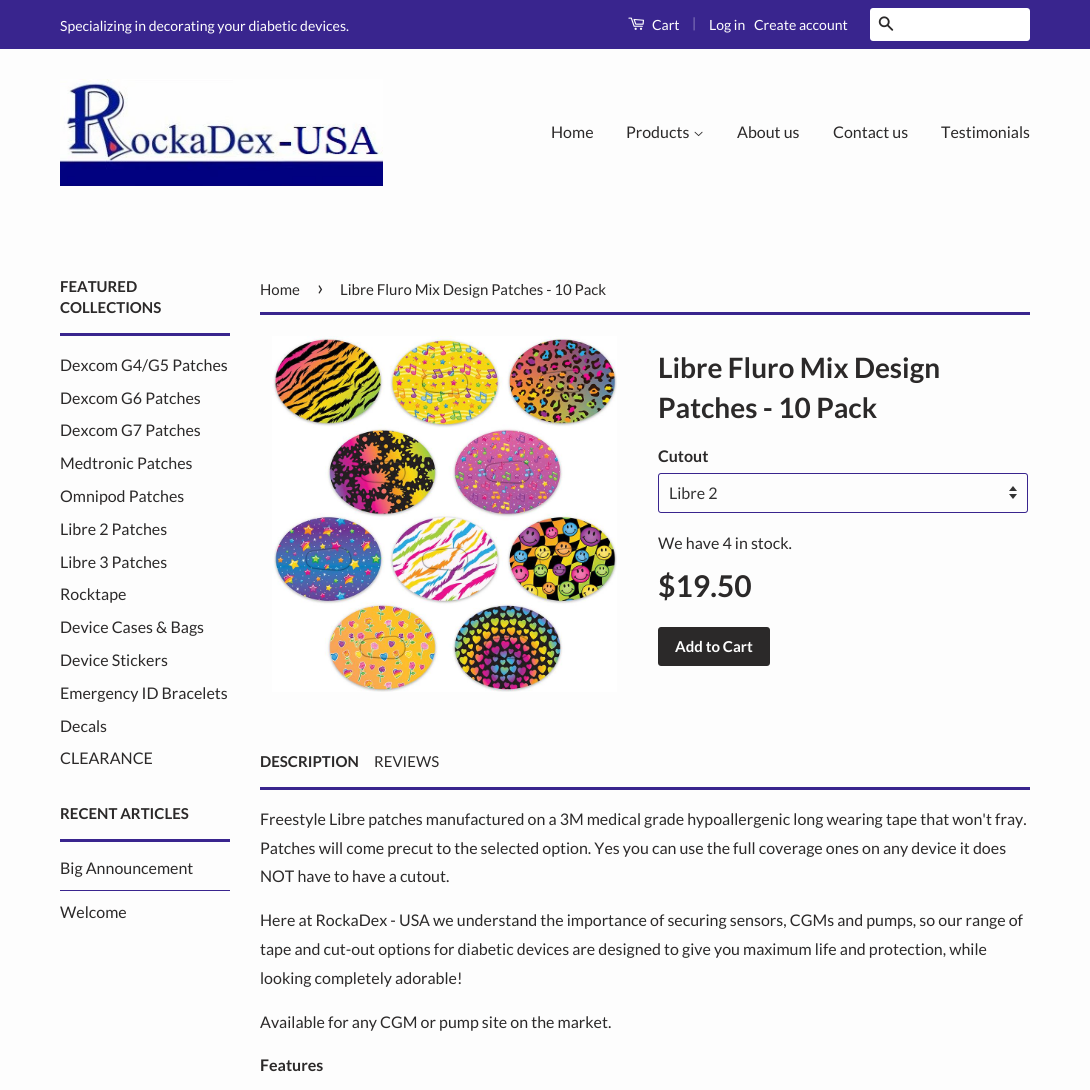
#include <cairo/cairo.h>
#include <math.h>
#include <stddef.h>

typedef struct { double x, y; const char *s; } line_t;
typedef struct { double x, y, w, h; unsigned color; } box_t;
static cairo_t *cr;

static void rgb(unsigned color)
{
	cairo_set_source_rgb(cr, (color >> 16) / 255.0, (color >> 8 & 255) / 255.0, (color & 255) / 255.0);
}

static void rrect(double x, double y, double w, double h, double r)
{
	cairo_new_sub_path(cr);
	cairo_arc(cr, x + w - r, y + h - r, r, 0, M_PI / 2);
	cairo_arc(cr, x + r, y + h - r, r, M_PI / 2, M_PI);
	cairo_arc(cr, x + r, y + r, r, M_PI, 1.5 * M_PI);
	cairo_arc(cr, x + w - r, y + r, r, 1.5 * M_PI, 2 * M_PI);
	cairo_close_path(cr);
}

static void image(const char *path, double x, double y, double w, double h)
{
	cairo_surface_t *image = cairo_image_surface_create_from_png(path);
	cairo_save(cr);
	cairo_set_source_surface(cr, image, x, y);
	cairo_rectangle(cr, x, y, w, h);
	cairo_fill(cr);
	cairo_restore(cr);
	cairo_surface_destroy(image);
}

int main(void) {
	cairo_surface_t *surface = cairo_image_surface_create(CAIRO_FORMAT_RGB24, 1090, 1090);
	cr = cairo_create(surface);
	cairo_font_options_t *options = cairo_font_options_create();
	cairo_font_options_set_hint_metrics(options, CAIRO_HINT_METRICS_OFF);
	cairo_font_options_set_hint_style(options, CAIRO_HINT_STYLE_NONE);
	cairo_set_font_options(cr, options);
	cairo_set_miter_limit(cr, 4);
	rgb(0xfdfdfd);
	cairo_paint(cr);
	rgb(0x39258e);
	cairo_rectangle(cr, 0, 0, 1090, 49);
	cairo_fill(cr);
	image("img/1.png", 628, 17, 16, 13);
	rgb(0xffffff);
	rrect(870, 8, 160, 33, 3);
	cairo_fill(cr);
	image("img/2.png", 878, 16, 16, 15);
	image("img/3.png", 60, 79, 323, 107);
	image("img/4.png", 694, 131, 9, 6);
	{
		static const box_t items[] = {
			{60, 333, 170, 3, 0x39258e},
			{60, 839, 170, 3, 0x39258e},
			{60, 890, 170, 1, 0x39258e},
			{260, 312, 770, 3, 0x39258e},
		};
		for (size_t i = 0; i < sizeof items / sizeof *items; i++) {
			rgb(items[i].color);
			cairo_rectangle(cr, items[i].x, items[i].y, items[i].w, items[i].h);
			cairo_fill(cr);
		}
	}
	image("img/5.png", 272, 336, 345, 356);
	image("img/6.png", 1009, 486, 8, 13);
	rrect(658.5, 473.5, 369, 39, 2.5);
	cairo_set_line_width(cr, 1);
	cairo_stroke(cr);
	rgb(0x2b2929);
	rrect(658, 627, 112, 39, 3);
	cairo_fill(cr);
	rgb(0x39258e);
	cairo_rectangle(cr, 260, 787, 770, 3);
	cairo_fill(cr);
	cairo_select_font_face(cr, "Lato", CAIRO_FONT_SLANT_NORMAL, CAIRO_FONT_WEIGHT_NORMAL);
	cairo_set_font_size(cr, 14);
	rgb(0xfefefe);
	cairo_move_to(cr, 60, 31);
	cairo_show_text(cr, "Specializing in decorating your diabetic devices.");
	cairo_move_to(cr, 652, 30);
	cairo_show_text(cr, "Cart");
	rgb(0x887cbb);
	cairo_move_to(cr, 692, 28);
	cairo_show_text(cr, "|");
	rgb(0xfefefe);
	cairo_move_to(cr, 709, 30);
	cairo_show_text(cr, "Log in");
	cairo_move_to(cr, 754, 30);
	cairo_show_text(cr, "Create account");
	cairo_set_font_size(cr, 16);
	rgb(0x2b2929);
	{
		static const line_t items[] = {
			{551, 138, "Home"},
			{626, 138, "Products"},
			{737, 138, "About us"},
			{833, 138, "Contact us"},
			{941, 138, "Testimonials"},
		};
		for (size_t i = 0; i < sizeof items / sizeof *items; i++) {
			cairo_move_to(cr, items[i].x, items[i].y);
			cairo_show_text(cr, items[i].s);
		}
	}
	cairo_select_font_face(cr, "Lato", CAIRO_FONT_SLANT_NORMAL, CAIRO_FONT_WEIGHT_BOLD);
	cairo_set_font_size(cr, 15);
	cairo_move_to(cr, 60, 292);
	cairo_show_text(cr, "FEATURED");
	cairo_move_to(cr, 60, 313);
	cairo_show_text(cr, "COLLECTIONS");
	cairo_select_font_face(cr, "Lato", CAIRO_FONT_SLANT_NORMAL, CAIRO_FONT_WEIGHT_NORMAL);
	cairo_set_font_size(cr, 16);
	{
		static const line_t items[] = {
			{60, 371, "Dexcom G4/G5 Patches"},
			{60, 404, "Dexcom G6 Patches"},
			{60, 436, "Dexcom G7 Patches"},
			{60, 469, "Medtronic Patches"},
			{60, 502, "Omnipod Patches"},
			{60, 535, "Libre 2 Patches"},
			{60, 568, "Libre 3 Patches"},
			{60, 600, "Rocktape"},
			{60, 633, "Device Cases & Bags"},
			{60, 666, "Device Stickers"},
			{60, 699, "Emergency ID Bracelets"},
			{60, 732, "Decals"},
			{60, 764, "CLEARANCE"},
		};
		for (size_t i = 0; i < sizeof items / sizeof *items; i++) {
			cairo_move_to(cr, items[i].x, items[i].y);
			cairo_show_text(cr, items[i].s);
		}
	}
	cairo_select_font_face(cr, "Lato", CAIRO_FONT_SLANT_NORMAL, CAIRO_FONT_WEIGHT_BOLD);
	cairo_set_font_size(cr, 15);
	cairo_move_to(cr, 60, 819);
	cairo_show_text(cr, "RECENT ARTICLES");
	cairo_select_font_face(cr, "Lato", CAIRO_FONT_SLANT_NORMAL, CAIRO_FONT_WEIGHT_NORMAL);
	cairo_set_font_size(cr, 16);
	cairo_move_to(cr, 60, 874);
	cairo_show_text(cr, "Big Announcement");
	cairo_move_to(cr, 60, 918);
	cairo_show_text(cr, "Welcome");
	cairo_set_font_size(cr, 15);
	cairo_move_to(cr, 260, 295);
	cairo_show_text(cr, "Home");
	cairo_set_font_size(cr, 21);
	cairo_move_to(cr, 317, 295);
	cairo_show_text(cr, "›");
	cairo_set_font_size(cr, 15);
	cairo_move_to(cr, 340, 295);
	cairo_show_text(cr, "Libre Fluro Mix Design Patches - 10 Pack");
	cairo_select_font_face(cr, "Lato", CAIRO_FONT_SLANT_NORMAL, CAIRO_FONT_WEIGHT_BOLD);
	cairo_set_font_size(cr, 28);
	cairo_move_to(cr, 658, 378);
	cairo_show_text(cr, "Libre Fluro Mix Design");
	cairo_move_to(cr, 658, 418);
	cairo_show_text(cr, "Patches - 10 Pack");
	cairo_set_font_size(cr, 16);
	cairo_move_to(cr, 658, 462);
	cairo_show_text(cr, "Cutout");
	cairo_select_font_face(cr, "Lato", CAIRO_FONT_SLANT_NORMAL, CAIRO_FONT_WEIGHT_NORMAL);
	rgb(0x333333);
	cairo_move_to(cr, 669, 499);
	cairo_show_text(cr, "Libre 2");
	rgb(0x2b2929);
	cairo_move_to(cr, 658, 549);
	cairo_show_text(cr, "We have 4 in stock.");
	cairo_select_font_face(cr, "Lato", CAIRO_FONT_SLANT_NORMAL, CAIRO_FONT_WEIGHT_BOLD);
	cairo_set_font_size(cr, 30);
	cairo_move_to(cr, 658, 597);
	cairo_show_text(cr, "$19.50");
	cairo_set_font_size(cr, 15);
	rgb(0xfefefe);
	cairo_move_to(cr, 675, 652);
	cairo_show_text(cr, "Add to Cart");
	rgb(0x2b2929);
	cairo_move_to(cr, 260, 767);
	cairo_show_text(cr, "DESCRIPTION");
	cairo_select_font_face(cr, "Lato", CAIRO_FONT_SLANT_NORMAL, CAIRO_FONT_WEIGHT_NORMAL);
	cairo_move_to(cr, 374, 767);
	cairo_show_text(cr, "REVIEWS");
	cairo_set_font_size(cr, 16);
	{
		static const line_t items[] = {
			{260, 825, "Freestyle Libre patches manufactured on a 3M medical grade hypoallergenic long wearing tape that won't fray."},
			{260, 854, "Patches will come precut to the selected option. Yes you can use the full coverage ones on any device it does"},
			{260, 882, "NOT have to have a cutout."},
			{260, 926, "Here at RockaDex - USA we understand the importance of securing sensors, CGMs and pumps, so our range of"},
			{260, 955, "tape and cut-out options for diabetic devices are designed to give you maximum life and protection, while"},
			{260, 984, "looking completely adorable!"},
			{260, 1028, "Available for any CGM or pump site on the market."},
		};
		for (size_t i = 0; i < sizeof items / sizeof *items; i++) {
			cairo_move_to(cr, items[i].x, items[i].y);
			cairo_show_text(cr, items[i].s);
		}
	}
	cairo_select_font_face(cr, "Lato", CAIRO_FONT_SLANT_NORMAL, CAIRO_FONT_WEIGHT_BOLD);
	cairo_move_to(cr, 260, 1071);
	cairo_show_text(cr, "Features");
	cairo_surface_write_to_png(surface, "page.png");
	cairo_font_options_destroy(options);
	cairo_destroy(cr);
	cairo_surface_destroy(surface);
	return 0;
}
